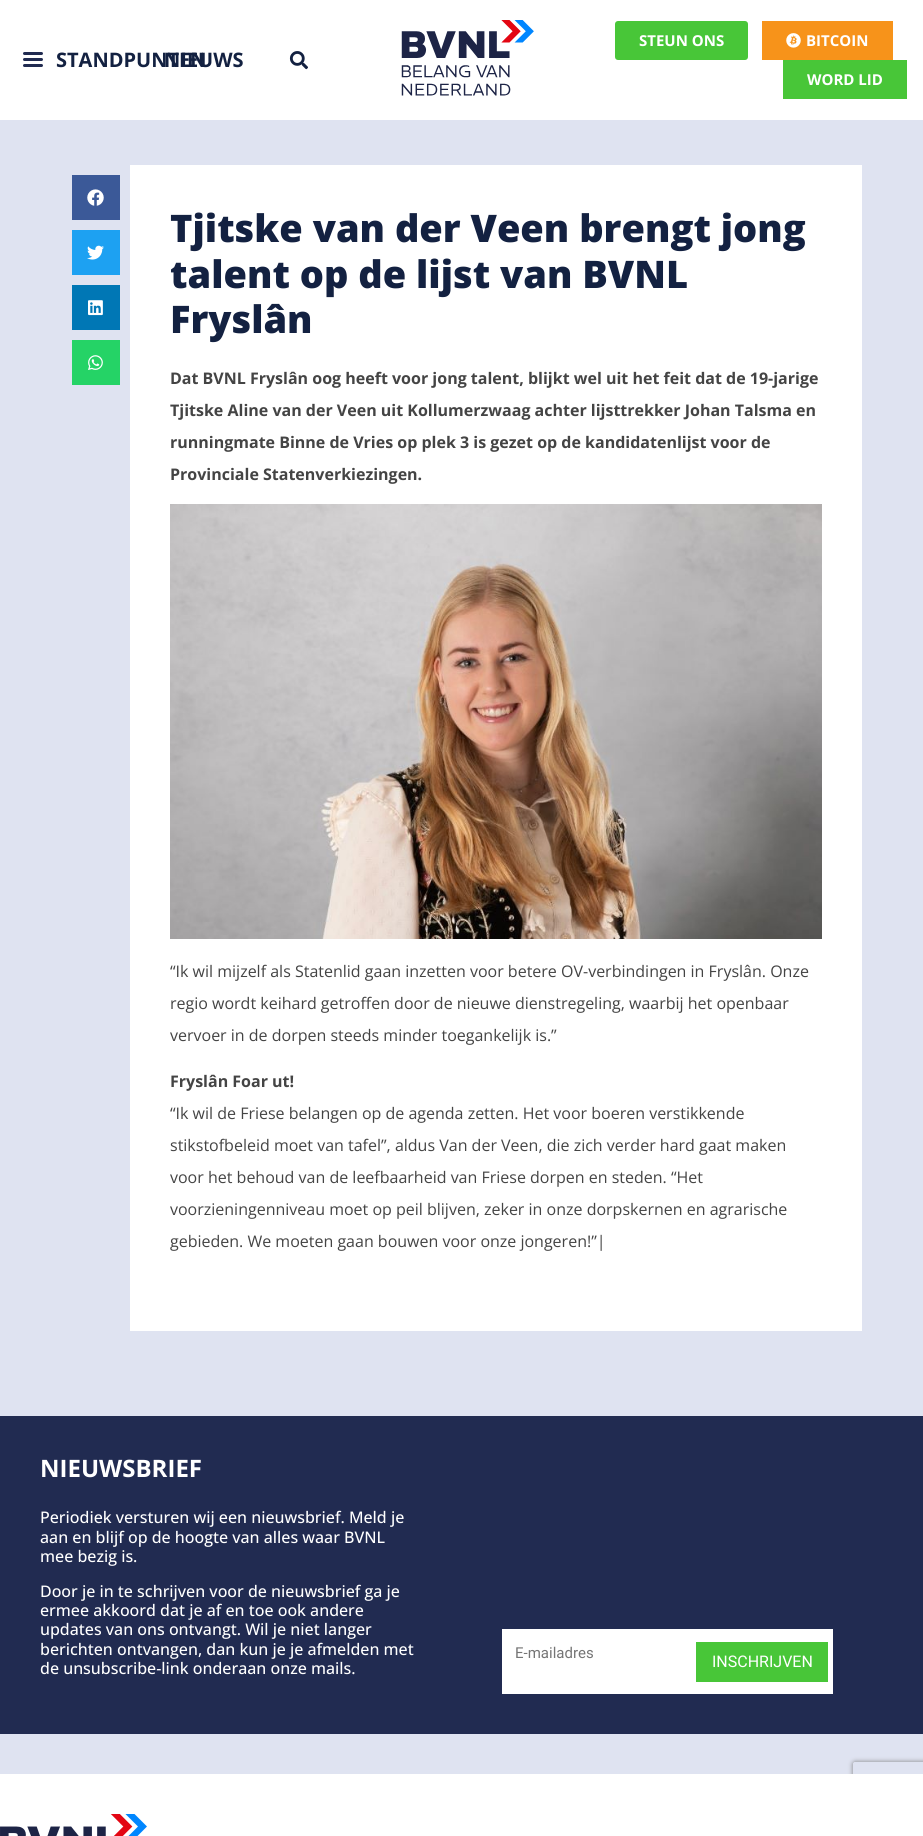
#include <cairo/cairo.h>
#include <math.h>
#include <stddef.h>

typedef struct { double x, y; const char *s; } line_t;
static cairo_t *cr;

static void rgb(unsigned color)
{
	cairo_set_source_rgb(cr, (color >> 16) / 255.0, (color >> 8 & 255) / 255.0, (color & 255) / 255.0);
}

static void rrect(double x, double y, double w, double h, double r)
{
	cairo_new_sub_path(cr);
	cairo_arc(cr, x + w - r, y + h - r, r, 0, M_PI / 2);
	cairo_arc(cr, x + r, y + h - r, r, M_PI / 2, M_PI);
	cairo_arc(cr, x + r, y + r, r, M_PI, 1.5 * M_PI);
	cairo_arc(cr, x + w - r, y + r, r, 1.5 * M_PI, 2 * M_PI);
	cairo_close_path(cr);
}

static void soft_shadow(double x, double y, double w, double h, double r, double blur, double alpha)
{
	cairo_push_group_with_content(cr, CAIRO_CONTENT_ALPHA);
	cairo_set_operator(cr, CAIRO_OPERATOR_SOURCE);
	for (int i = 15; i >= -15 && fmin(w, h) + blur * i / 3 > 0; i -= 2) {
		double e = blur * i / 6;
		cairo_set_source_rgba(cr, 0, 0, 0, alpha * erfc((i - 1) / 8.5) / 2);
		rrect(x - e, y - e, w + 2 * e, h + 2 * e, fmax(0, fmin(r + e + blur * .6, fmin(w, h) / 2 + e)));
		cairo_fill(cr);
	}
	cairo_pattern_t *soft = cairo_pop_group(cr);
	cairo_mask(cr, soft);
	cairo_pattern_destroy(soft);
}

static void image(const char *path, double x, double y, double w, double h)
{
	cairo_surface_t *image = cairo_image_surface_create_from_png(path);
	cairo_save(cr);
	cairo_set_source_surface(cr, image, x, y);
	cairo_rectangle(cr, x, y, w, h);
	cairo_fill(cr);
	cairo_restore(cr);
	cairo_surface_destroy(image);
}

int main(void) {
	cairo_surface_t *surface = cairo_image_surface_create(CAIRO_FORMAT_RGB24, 923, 1836);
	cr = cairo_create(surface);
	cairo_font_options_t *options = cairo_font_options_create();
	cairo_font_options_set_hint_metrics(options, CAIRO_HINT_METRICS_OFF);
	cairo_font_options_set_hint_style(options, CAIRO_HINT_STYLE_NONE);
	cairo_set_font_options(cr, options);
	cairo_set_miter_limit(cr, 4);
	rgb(0xdfe3f1);
	cairo_paint(cr);
	rgb(0xffffff);
	cairo_rectangle(cr, 0, 0, 923, 120);
	cairo_fill(cr);
	rgb(0x212b51);
	rrect(23, 52, 20, 3, 1.5);
	cairo_fill(cr);
	rrect(23, 58, 20, 3, 1.5);
	cairo_fill(cr);
	rrect(23, 64, 20, 3, 1.5);
	cairo_fill(cr);
	image("img/1.png", 289, 51, 19, 19);
	image("img/2.png", 401, 20, 133, 76);
	rgb(0x48c638);
	rrect(615, 21, 133, 39, 3);
	cairo_fill(cr);
	rgb(0xf7931a);
	cairo_rectangle(cr, 762, 21, 131, 39);
	cairo_fill(cr);
	image("img/3.png", 786, 33, 15, 15);
	rgb(0x48c638);
	cairo_rectangle(cr, 783, 60, 124, 39);
	cairo_fill(cr);
	rgb(0x3b5998);
	cairo_rectangle(cr, 72, 175, 48, 45);
	cairo_fill(cr);
	image("img/4.png", 87, 189, 17, 17);
	rgb(0x1da1f2);
	cairo_rectangle(cr, 72, 230, 48, 45);
	cairo_fill(cr);
	image("img/5.png", 87, 245, 17, 15);
	rgb(0x0077b5);
	cairo_rectangle(cr, 72, 285, 48, 45);
	cairo_fill(cr);
	image("img/6.png", 88, 300, 15, 16);
	rgb(0x25d366);
	cairo_rectangle(cr, 72, 340, 48, 45);
	cairo_fill(cr);
	image("img/7.png", 88, 355, 15, 15);
	rgb(0xffffff);
	cairo_rectangle(cr, 130, 165, 732, 1166);
	cairo_fill(cr);
	image("img/8.png", 170, 504, 652, 435);
	rgb(0x212b51);
	cairo_rectangle(cr, 0, 1416, 923, 318);
	cairo_fill(cr);
	rgb(0xffffff);
	cairo_rectangle(cr, 502, 1629, 331, 65);
	cairo_fill(cr);
	cairo_save(cr);
	cairo_set_fill_rule(cr, CAIRO_FILL_RULE_EVEN_ODD);
	cairo_new_path(cr);
	cairo_move_to(cr, 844, 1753);
	cairo_line_to(cr, 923, 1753);
	cairo_line_to(cr, 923, 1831);
	cairo_line_to(cr, 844, 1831);
	cairo_close_path(cr);
	cairo_move_to(cr, 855, 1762);
	cairo_line_to(cr, 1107, 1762);
	cairo_curve_to(cr, 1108, 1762, 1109, 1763, 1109, 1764);
	cairo_line_to(cr, 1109, 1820);
	cairo_curve_to(cr, 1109, 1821, 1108, 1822, 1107, 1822);
	cairo_line_to(cr, 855, 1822);
	cairo_curve_to(cr, 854, 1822, 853, 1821, 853, 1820);
	cairo_line_to(cr, 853, 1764);
	cairo_curve_to(cr, 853, 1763, 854, 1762, 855, 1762);
	cairo_close_path(cr);
	cairo_clip(cr);
	rgb(0x808080);
	soft_shadow(853, 1762, 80, 60, 2, 2.5, 1);
	cairo_restore(cr);
	rgb(0x48c638);
	cairo_rectangle(cr, 696, 1642, 132, 40);
	cairo_fill(cr);
	rgb(0xffffff);
	cairo_rectangle(cr, 0, 1774, 923, 62);
	cairo_fill(cr);
	image("img/9.png", 0, 1814, 147, 22);
	cairo_select_font_face(cr, "Open Sans", CAIRO_FONT_SLANT_NORMAL, CAIRO_FONT_WEIGHT_BOLD);
	cairo_set_font_size(cr, 20);
	rgb(0x132141);
	cairo_move_to(cr, 56, 67);
	cairo_show_text(cr, "STANDPUNTEN");
	cairo_move_to(cr, 164, 67);
	cairo_show_text(cr, "NIEUWS");
	cairo_set_font_size(cr, 15);
	rgb(0xffffff);
	{
		static const line_t items[] = {
			{639, 46, "STEUN ONS"},
			{806, 46, "BITCOIN"},
			{807, 85, "WORD LID"},
		};
		for (size_t i = 0; i < sizeof items / sizeof *items; i++) {
			cairo_move_to(cr, items[i].x, items[i].y);
			cairo_show_text(cr, items[i].s);
		}
	}
	cairo_select_font_face(cr, "Open Sans ExtraBold", CAIRO_FONT_SLANT_NORMAL, CAIRO_FONT_WEIGHT_NORMAL);
	cairo_set_font_size(cr, 38);
	rgb(0x132141);
	{
		static const line_t items[] = {
			{170, 242, "Tjitske van der Veen brengt jong"},
			{170, 288, "talent op de lijst van BVNL"},
			{170, 333, "Fryslân"},
		};
		for (size_t i = 0; i < sizeof items / sizeof *items; i++) {
			cairo_move_to(cr, items[i].x, items[i].y);
			cairo_show_text(cr, items[i].s);
		}
	}
	cairo_select_font_face(cr, "Open Sans", CAIRO_FONT_SLANT_NORMAL, CAIRO_FONT_WEIGHT_BOLD);
	cairo_set_font_size(cr, 16);
	rgb(0x444444);
	{
		static const line_t items[] = {
			{170, 384, "Dat BVNL Fryslân oog heeft voor jong talent, blijkt wel uit het feit dat de 19-jarige"},
			{170, 416, "Tjitske Aline van der Veen uit Kollumerzwaag achter lijsttrekker Johan Talsma en"},
			{170, 448, "runningmate Binne de Vries op plek 3 is gezet op de kandidatenlijst voor de"},
			{170, 480, "Provinciale Statenverkiezingen."},
		};
		for (size_t i = 0; i < sizeof items / sizeof *items; i++) {
			cairo_move_to(cr, items[i].x, items[i].y);
			cairo_show_text(cr, items[i].s);
		}
	}
	cairo_select_font_face(cr, "Open Sans", CAIRO_FONT_SLANT_NORMAL, CAIRO_FONT_WEIGHT_NORMAL);
	{
		static const line_t items[] = {
			{170, 977, "“Ik wil mijzelf als Statenlid gaan inzetten voor betere OV-verbindingen in Fryslân. Onze"},
			{170, 1009, "regio wordt keihard getroffen door de nieuwe dienstregeling, waarbij het openbaar"},
			{170, 1041, "vervoer in de dorpen steeds minder toegankelijk is.”"},
		};
		for (size_t i = 0; i < sizeof items / sizeof *items; i++) {
			cairo_move_to(cr, items[i].x, items[i].y);
			cairo_show_text(cr, items[i].s);
		}
	}
	cairo_select_font_face(cr, "Open Sans", CAIRO_FONT_SLANT_NORMAL, CAIRO_FONT_WEIGHT_BOLD);
	cairo_move_to(cr, 170, 1087);
	cairo_show_text(cr, "Fryslân Foar ut!");
	cairo_select_font_face(cr, "Open Sans", CAIRO_FONT_SLANT_NORMAL, CAIRO_FONT_WEIGHT_NORMAL);
	{
		static const line_t items[] = {
			{170, 1119, "“Ik wil de Friese belangen op de agenda zetten. Het voor boeren verstikkende"},
			{170, 1151, "stikstofbeleid moet van tafel”, aldus Van der Veen, die zich verder hard gaat maken"},
			{170, 1183, "voor het behoud van de leefbaarheid van Friese dorpen en steden. “Het"},
			{170, 1215, "voorzieningenniveau moet op peil blijven, zeker in onze dorpskernen en agrarische"},
			{170, 1247, "gebieden. We moeten gaan bouwen voor onze jongeren!”|"},
		};
		for (size_t i = 0; i < sizeof items / sizeof *items; i++) {
			cairo_move_to(cr, items[i].x, items[i].y);
			cairo_show_text(cr, items[i].s);
		}
	}
	cairo_select_font_face(cr, "Open Sans", CAIRO_FONT_SLANT_NORMAL, CAIRO_FONT_WEIGHT_BOLD);
	cairo_set_font_size(cr, 24);
	rgb(0xffffff);
	cairo_move_to(cr, 40, 1477);
	cairo_show_text(cr, "NIEUWSBRIEF");
	cairo_select_font_face(cr, "Open Sans Medium", CAIRO_FONT_SLANT_NORMAL, CAIRO_FONT_WEIGHT_NORMAL);
	cairo_set_font_size(cr, 16);
	{
		static const line_t items[] = {
			{40, 1523, "Periodiek versturen wij een nieuwsbrief. Meld je"},
			{40, 1543, "aan en blijf op de hoogte van alles waar BVNL"},
			{40, 1562, "mee bezig is."},
			{40, 1597, "Door je in te schrijven voor de nieuwsbrief ga je"},
			{40, 1616, "ermee akkoord dat je af en toe ook andere"},
			{40, 1635, "updates van ons ontvangt. Wil je niet langer"},
			{40, 1655, "berichten ontvangen, dan kun je je afmelden met"},
			{40, 1674, "de unsubscribe-link onderaan onze mails."},
		};
		for (size_t i = 0; i < sizeof items / sizeof *items; i++) {
			cairo_move_to(cr, items[i].x, items[i].y);
			cairo_show_text(cr, items[i].s);
		}
	}
	cairo_select_font_face(cr, "Roboto", CAIRO_FONT_SLANT_NORMAL, CAIRO_FONT_WEIGHT_NORMAL);
	cairo_set_font_size(cr, 15);
	rgb(0x757575);
	cairo_move_to(cr, 515, 1658);
	cairo_show_text(cr, "E-mailadres");
	cairo_set_font_size(cr, 16);
	rgb(0xffffff);
	cairo_move_to(cr, 712, 1667);
	cairo_show_text(cr, "INSCHRIJVEN");
	cairo_surface_write_to_png(surface, "page.png");
	cairo_font_options_destroy(options);
	cairo_destroy(cr);
	cairo_surface_destroy(surface);
	return 0;
}
